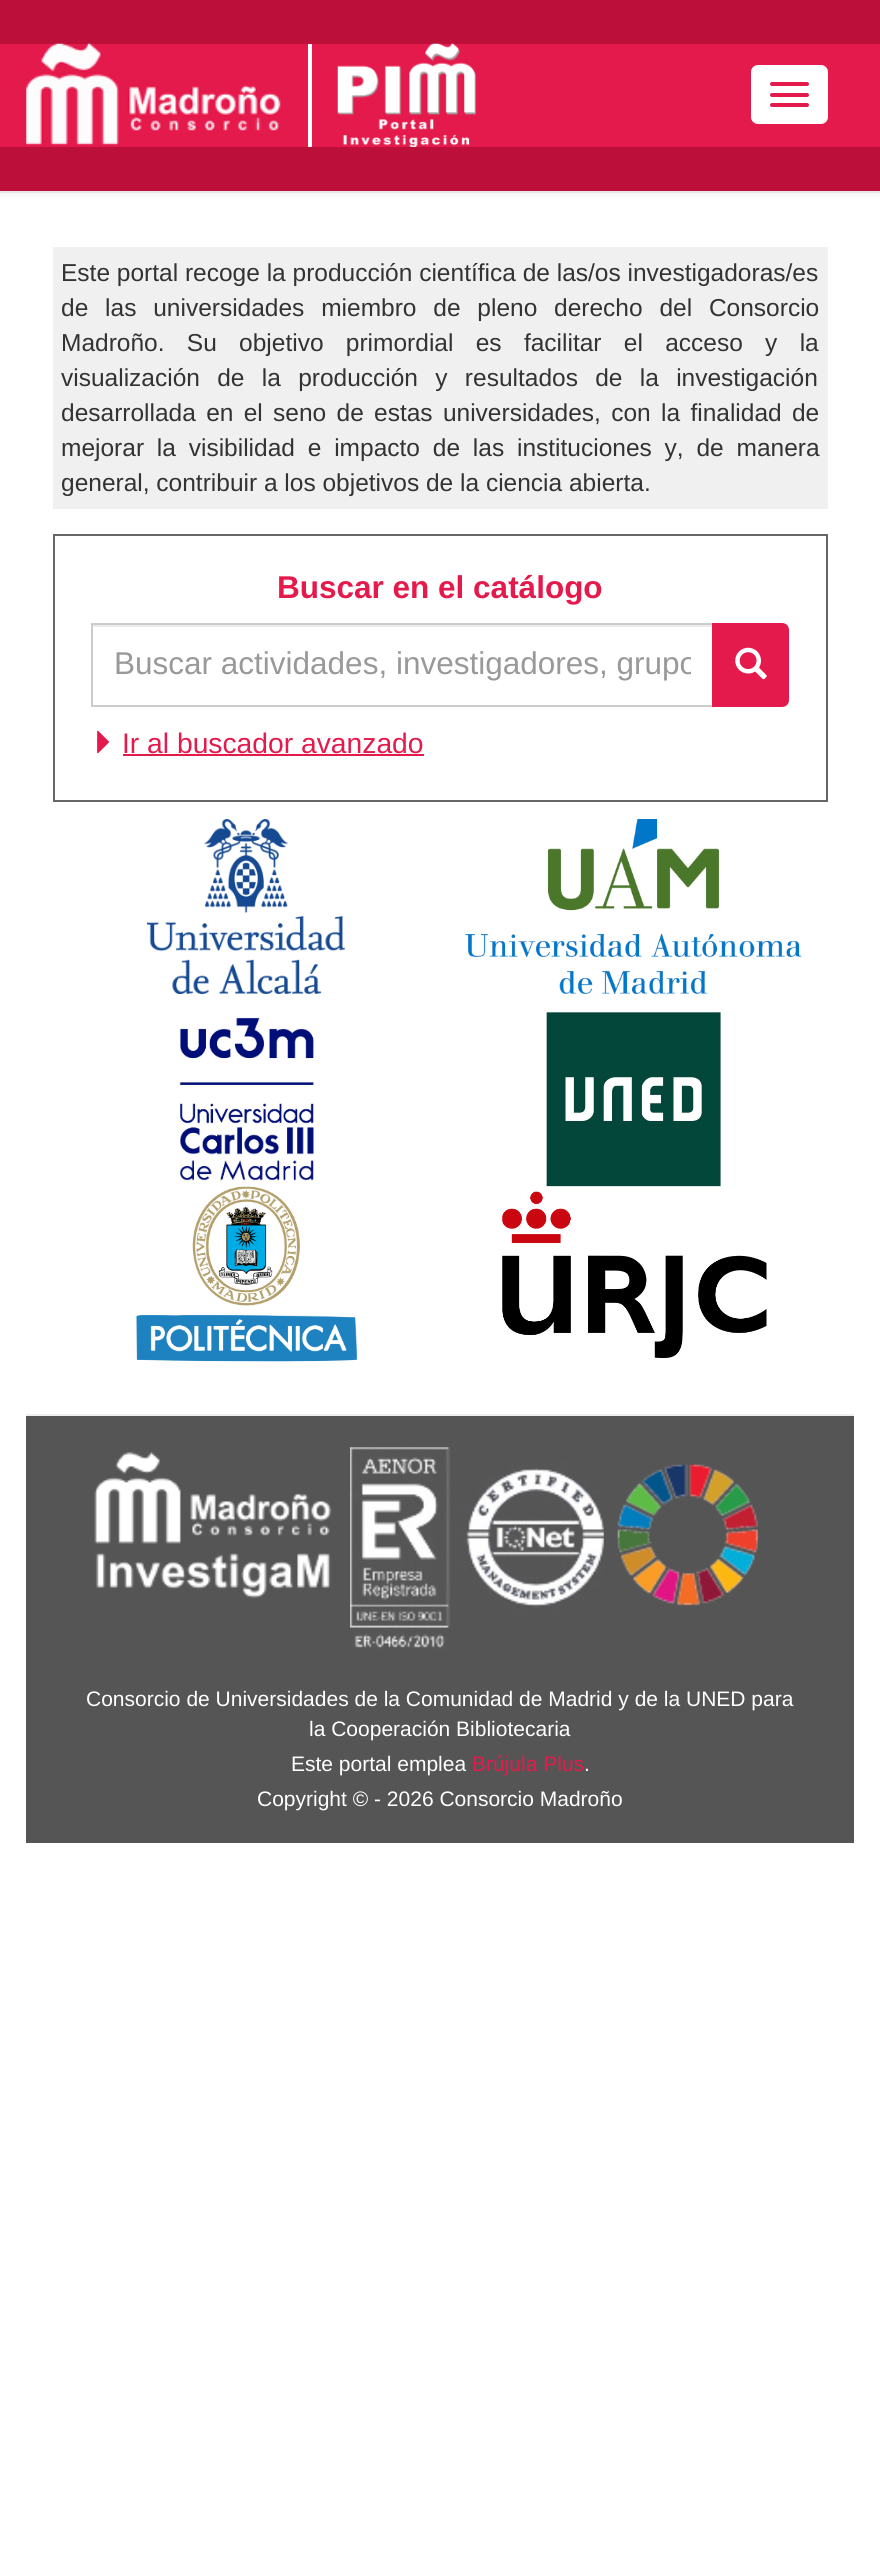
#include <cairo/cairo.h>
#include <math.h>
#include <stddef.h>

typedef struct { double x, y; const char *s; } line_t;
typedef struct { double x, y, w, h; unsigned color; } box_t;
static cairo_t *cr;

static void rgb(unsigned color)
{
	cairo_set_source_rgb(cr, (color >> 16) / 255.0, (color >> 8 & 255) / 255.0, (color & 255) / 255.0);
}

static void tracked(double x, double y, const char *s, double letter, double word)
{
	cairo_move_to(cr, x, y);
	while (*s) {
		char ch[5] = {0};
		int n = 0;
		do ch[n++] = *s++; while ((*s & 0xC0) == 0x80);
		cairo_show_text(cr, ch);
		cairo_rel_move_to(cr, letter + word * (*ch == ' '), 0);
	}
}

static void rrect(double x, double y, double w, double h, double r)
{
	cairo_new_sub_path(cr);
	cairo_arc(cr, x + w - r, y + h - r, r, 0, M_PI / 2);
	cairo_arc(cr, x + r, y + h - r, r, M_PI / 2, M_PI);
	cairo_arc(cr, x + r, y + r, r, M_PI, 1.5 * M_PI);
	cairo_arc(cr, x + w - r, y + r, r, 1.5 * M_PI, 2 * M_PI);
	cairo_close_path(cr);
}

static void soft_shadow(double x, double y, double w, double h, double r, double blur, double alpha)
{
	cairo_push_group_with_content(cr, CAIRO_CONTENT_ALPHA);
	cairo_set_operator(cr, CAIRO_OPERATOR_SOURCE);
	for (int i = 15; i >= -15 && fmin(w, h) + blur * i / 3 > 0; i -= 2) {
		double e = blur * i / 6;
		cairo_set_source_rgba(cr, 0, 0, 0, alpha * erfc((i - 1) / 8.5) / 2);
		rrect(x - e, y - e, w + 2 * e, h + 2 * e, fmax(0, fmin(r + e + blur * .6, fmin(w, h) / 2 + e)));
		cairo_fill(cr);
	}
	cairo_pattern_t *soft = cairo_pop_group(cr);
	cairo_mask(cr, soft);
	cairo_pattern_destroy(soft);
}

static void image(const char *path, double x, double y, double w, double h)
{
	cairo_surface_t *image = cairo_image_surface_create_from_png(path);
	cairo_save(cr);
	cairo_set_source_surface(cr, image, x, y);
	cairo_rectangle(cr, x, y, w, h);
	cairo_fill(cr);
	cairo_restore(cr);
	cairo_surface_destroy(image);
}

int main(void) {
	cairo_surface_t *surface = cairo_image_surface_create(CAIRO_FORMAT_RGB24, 880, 2566);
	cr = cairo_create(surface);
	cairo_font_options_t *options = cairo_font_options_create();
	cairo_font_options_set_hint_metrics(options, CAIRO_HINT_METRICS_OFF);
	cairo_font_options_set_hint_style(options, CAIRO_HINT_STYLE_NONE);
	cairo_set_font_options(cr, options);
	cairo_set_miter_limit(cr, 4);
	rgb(0xffffff);
	cairo_paint(cr);
	rgb(0x000000);
	soft_shadow(0, 2, 880, 192, 0, 4.5, 0.07);
	{
		static const box_t items[] = {
			{0, 191, 880, 2, 0xe7e7e7},
			{0, 44, 880, 103, 0xe51a4c},
			{0, 0, 880, 44, 0xbc0f3a},
			{0, 147, 880, 44, 0xbc0f3a},
			{308, 44, 4, 103, 0xffffff},
		};
		for (size_t i = 0; i < sizeof items / sizeof *items; i++) {
			rgb(items[i].color);
			cairo_rectangle(cr, items[i].x, items[i].y, items[i].w, items[i].h);
			cairo_fill(cr);
		}
	}
	image("img/1.png", 26, 43, 256, 102);
	image("img/2.png", 337, 43, 139, 104);
	rrect(751, 65, 77, 59, 7);
	cairo_fill(cr);
	rgb(0xe51a4c);
	rrect(770, 82, 39, 4, 2);
	cairo_fill(cr);
	rrect(770, 93, 39, 4, 2);
	cairo_fill(cr);
	rrect(770, 103, 39, 4, 2);
	cairo_fill(cr);
	rgb(0xf0f0f0);
	cairo_rectangle(cr, 53, 247, 775, 262);
	cairo_fill(cr);
	cairo_rectangle(cr, 54, 535, 773, 266);
	rgb(0x666666);
	cairo_stroke(cr);
	rgb(0xececec);
	cairo_rectangle(cr, 93, 625, 619, 2);
	cairo_fill(cr);
	cairo_rectangle(cr, 92, 624, 621, 82);
	rgb(0xcccccc);
	cairo_stroke(cr);
	rgb(0xe51a4c);
	cairo_new_path(cr);
	cairo_move_to(cr, 713, 624);
	cairo_line_to(cr, 782, 624);
	cairo_curve_to(cr, 785.5, 624, 788, 626.5, 788, 630);
	cairo_line_to(cr, 788, 700);
	cairo_curve_to(cr, 788, 703.5, 785.5, 706, 782, 706);
	cairo_line_to(cr, 713, 706);
	cairo_close_path(cr);
	cairo_fill_preserve(cr);
	cairo_stroke(cr);
	image("img/3.png", 735, 647, 32, 33);
	image("img/4.png", 97, 730, 12, 24);
	cairo_rectangle(cr, 123, 754, 301, 2);
	cairo_fill(cr);
	image("img/5.png", 147, 819, 198, 175);
	image("img/6.png", 465, 819, 337, 175);
	image("img/7.png", 180, 1017, 134, 164);
	image("img/8.png", 546, 1012, 175, 175);
	image("img/9.png", 136, 1186, 221, 176);
	image("img/10.png", 502, 1191, 265, 167);
	rgb(0x555555);
	cairo_rectangle(cr, 26, 1416, 828, 427);
	cairo_fill(cr);
	rgb(0xeeeeee);
	cairo_rectangle(cr, 26, 1414, 828, 2);
	cairo_fill(cr);
	image("img/11.png", 94, 1452, 238, 147);
	image("img/12.png", 350, 1447, 254, 203);
	image("img/13.png", 617, 1464, 141, 142);
	cairo_select_font_face(cr, "Liberation Sans", CAIRO_FONT_SLANT_NORMAL, CAIRO_FONT_WEIGHT_NORMAL);
	cairo_set_font_size(cr, 24.5);
	rgb(0x333333);
	cairo_move_to(cr, 61, 281);
	cairo_show_text(cr, "Este portal recoge la producción científica de las/os investigadoras/es");
	tracked(61, 316, "de las universidades miembro de pleno derecho del Consorcio", 0, 10);
	tracked(61, 351, "Madroño. Su objetivo primordial es facilitar el acceso y la", 0, 15.5);
	tracked(61, 386, "visualización de la producción y resultados de la investigación", 0, 10.5);
	tracked(61, 421, "desarrollada en el seno de estas universidades, con la finalidad de", 0, 3.5);
	tracked(61, 456, "mejorar la visibilidad e impacto de las instituciones y, de manera", 0, 6);
	cairo_move_to(cr, 61, 491);
	cairo_show_text(cr, "general, contribuir a los objetivos de la ciencia abierta.");
	cairo_select_font_face(cr, "Liberation Sans", CAIRO_FONT_SLANT_NORMAL, CAIRO_FONT_WEIGHT_BOLD);
	cairo_set_font_size(cr, 31.5);
	rgb(0xe51a4c);
	cairo_move_to(cr, 277, 598);
	cairo_show_text(cr, "Buscar en el catálogo");
	cairo_save(cr);
	cairo_rectangle(cr, 114, 646, 577, 37);
	cairo_clip(cr);
	cairo_select_font_face(cr, "Liberation Sans", CAIRO_FONT_SLANT_NORMAL, CAIRO_FONT_WEIGHT_NORMAL);
	rgb(0x999999);
	cairo_move_to(cr, 114, 674);
	cairo_show_text(cr, "Buscar actividades, investigadores, grupo");
	cairo_restore(cr);
	cairo_select_font_face(cr, "Liberation Sans", CAIRO_FONT_SLANT_NORMAL, CAIRO_FONT_WEIGHT_NORMAL);
	cairo_set_font_size(cr, 28.25);
	cairo_move_to(cr, 122, 753);
	cairo_show_text(cr, "Ir al buscador avanzado");
	cairo_set_font_size(cr, 21);
	rgb(0xffffff);
	{
		static const line_t items[] = {
			{86, 1706, "Consorcio de Universidades de la Comunidad de Madrid y de la UNED para"},
			{309, 1736, "la Cooperación Bibliotecaria"},
			{291, 1771, "Este portal emplea"},
		};
		for (size_t i = 0; i < sizeof items / sizeof *items; i++) {
			cairo_move_to(cr, items[i].x, items[i].y);
			cairo_show_text(cr, items[i].s);
		}
	}
	rgb(0xe51a4c);
	cairo_move_to(cr, 472, 1771);
	cairo_show_text(cr, "Brújula Plus");
	rgb(0xffffff);
	cairo_move_to(cr, 584, 1771);
	cairo_show_text(cr, ".");
	cairo_move_to(cr, 257, 1806);
	cairo_show_text(cr, "Copyright © - 2026 Consorcio Madroño");
	cairo_surface_write_to_png(surface, "page.png");
	cairo_font_options_destroy(options);
	cairo_destroy(cr);
	cairo_surface_destroy(surface);
	return 0;
}
